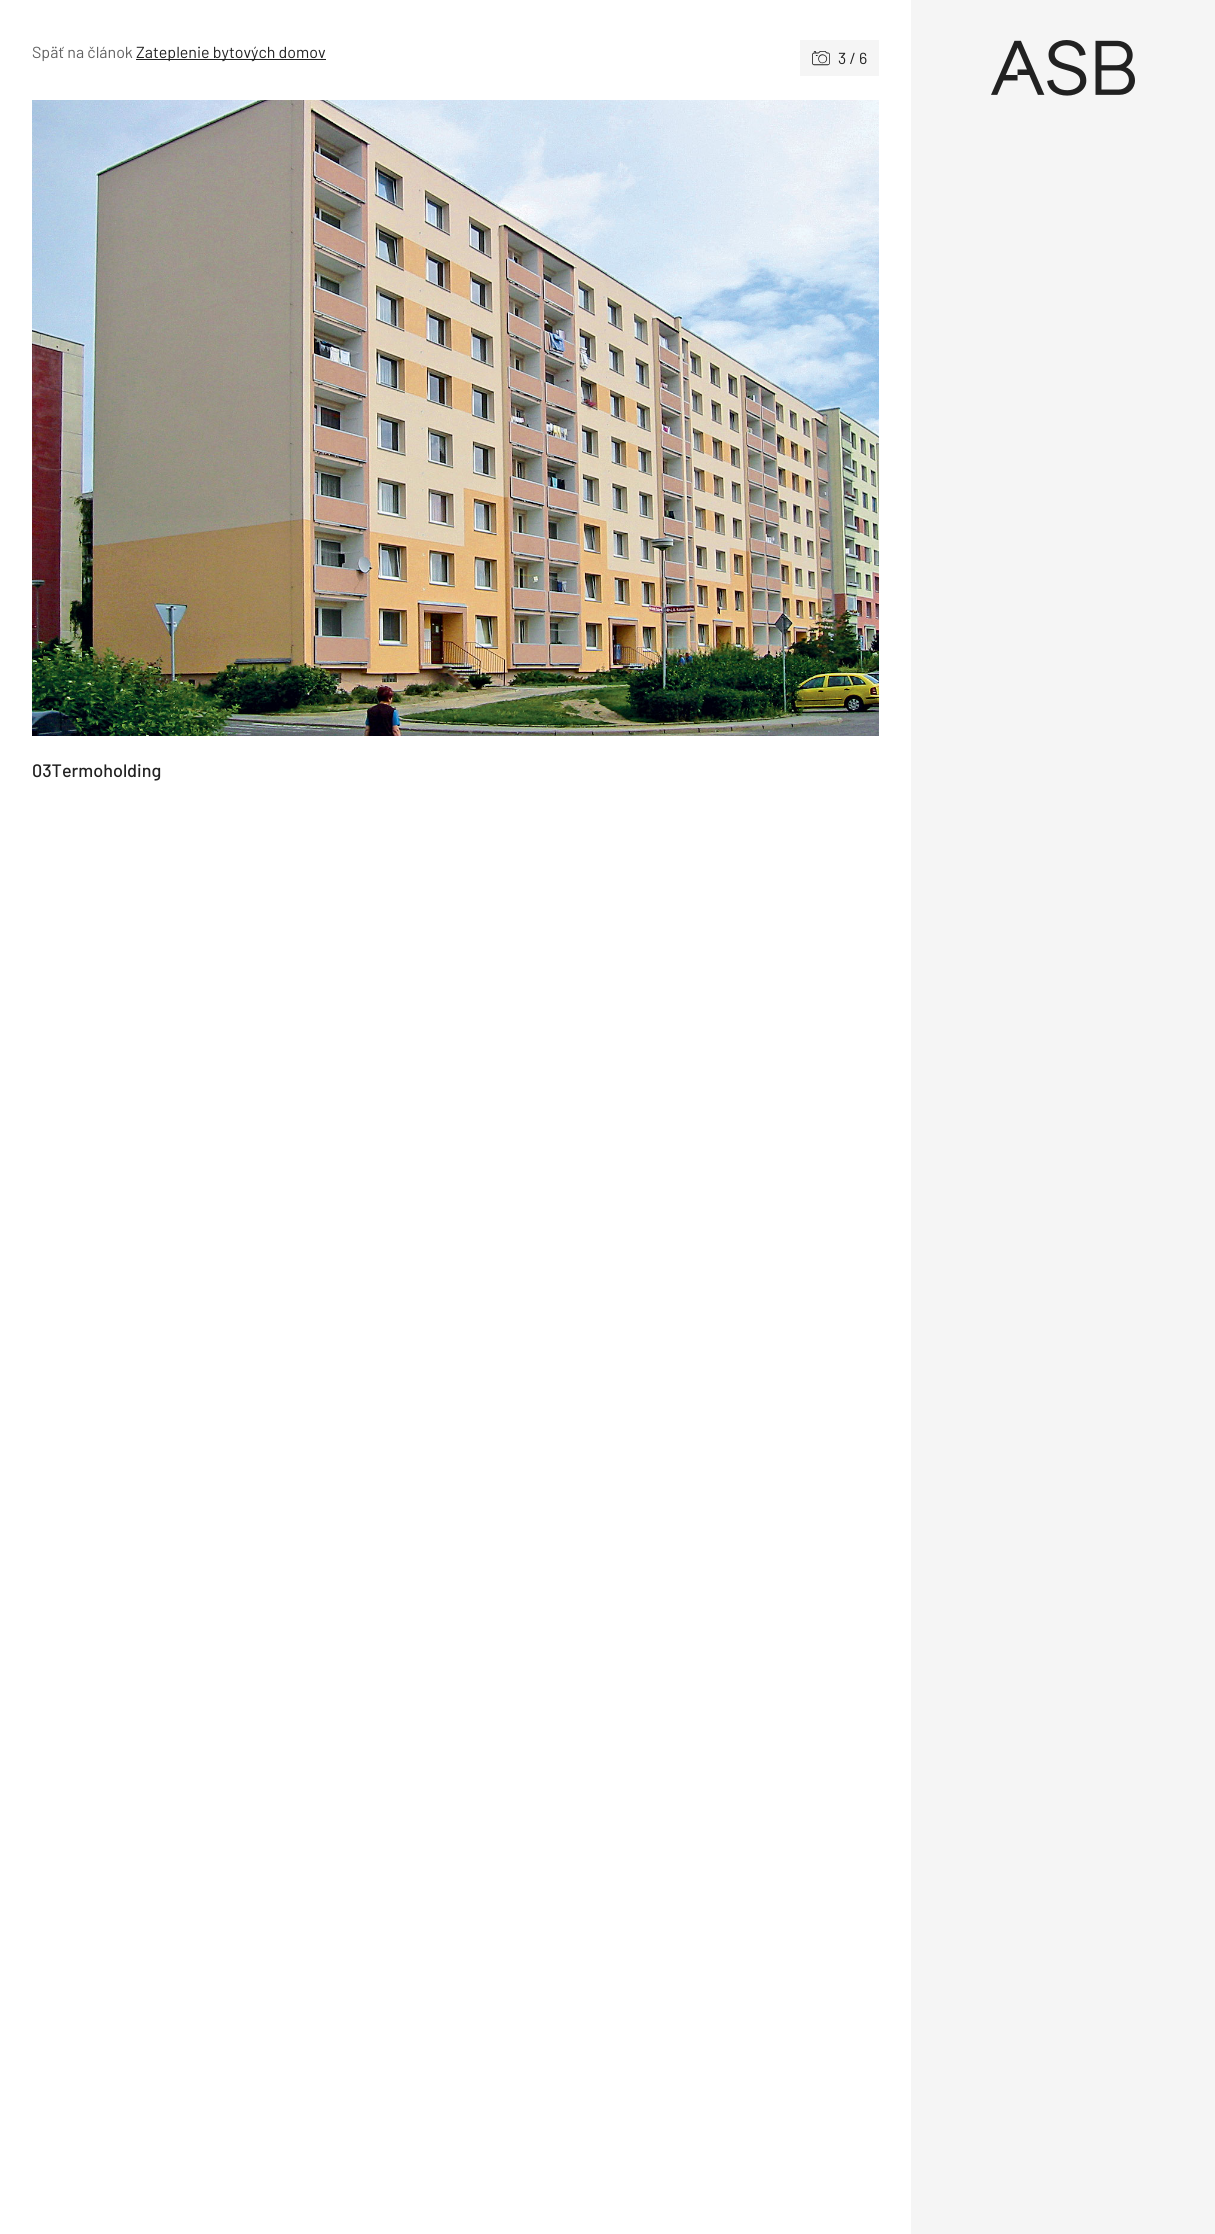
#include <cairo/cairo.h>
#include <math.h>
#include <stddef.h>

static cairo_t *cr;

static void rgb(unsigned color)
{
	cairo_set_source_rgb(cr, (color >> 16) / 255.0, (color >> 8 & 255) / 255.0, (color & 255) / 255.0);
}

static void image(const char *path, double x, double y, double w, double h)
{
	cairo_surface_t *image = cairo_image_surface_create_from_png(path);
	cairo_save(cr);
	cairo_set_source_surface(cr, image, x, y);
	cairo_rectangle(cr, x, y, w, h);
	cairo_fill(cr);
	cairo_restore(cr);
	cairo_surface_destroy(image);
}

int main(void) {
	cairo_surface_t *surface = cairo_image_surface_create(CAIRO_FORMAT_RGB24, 1215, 2234);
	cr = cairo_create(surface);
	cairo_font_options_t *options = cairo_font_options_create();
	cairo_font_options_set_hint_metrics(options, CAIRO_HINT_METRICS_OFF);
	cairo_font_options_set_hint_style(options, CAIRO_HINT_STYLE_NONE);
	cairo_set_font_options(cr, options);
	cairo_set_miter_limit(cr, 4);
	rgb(0xffffff);
	cairo_paint(cr);
	rgb(0x212121);
	cairo_rectangle(cr, 136, 59, 190, 1);
	cairo_fill(cr);
	rgb(0xf5f5f5);
	cairo_rectangle(cr, 800, 40, 79, 36);
	cairo_fill(cr);
	image("img/1.png", 812, 51, 18, 15);
	image("img/2.png", 32, 100, 847, 636);
	cairo_rectangle(cr, 911, 0, 304, 2234);
	cairo_fill(cr);
	image("img/3.png", 991, 40, 144, 56);
	cairo_select_font_face(cr, "Barlow", CAIRO_FONT_SLANT_NORMAL, CAIRO_FONT_WEIGHT_NORMAL);
	cairo_set_font_size(cr, 16);
	rgb(0x616161);
	cairo_move_to(cr, 32, 58);
	cairo_show_text(cr, "Späť na článok");
	rgb(0x212121);
	cairo_move_to(cr, 136, 58);
	cairo_show_text(cr, "Zateplenie bytových domov");
	cairo_move_to(cr, 838, 64);
	cairo_show_text(cr, "3 / 6");
	cairo_select_font_face(cr, "Barlow Medium", CAIRO_FONT_SLANT_NORMAL, CAIRO_FONT_WEIGHT_NORMAL);
	cairo_set_font_size(cr, 18);
	cairo_move_to(cr, 32, 777);
	cairo_show_text(cr, "03Termoholding");
	cairo_surface_write_to_png(surface, "page.png");
	cairo_font_options_destroy(options);
	cairo_destroy(cr);
	cairo_surface_destroy(surface);
	return 0;
}
